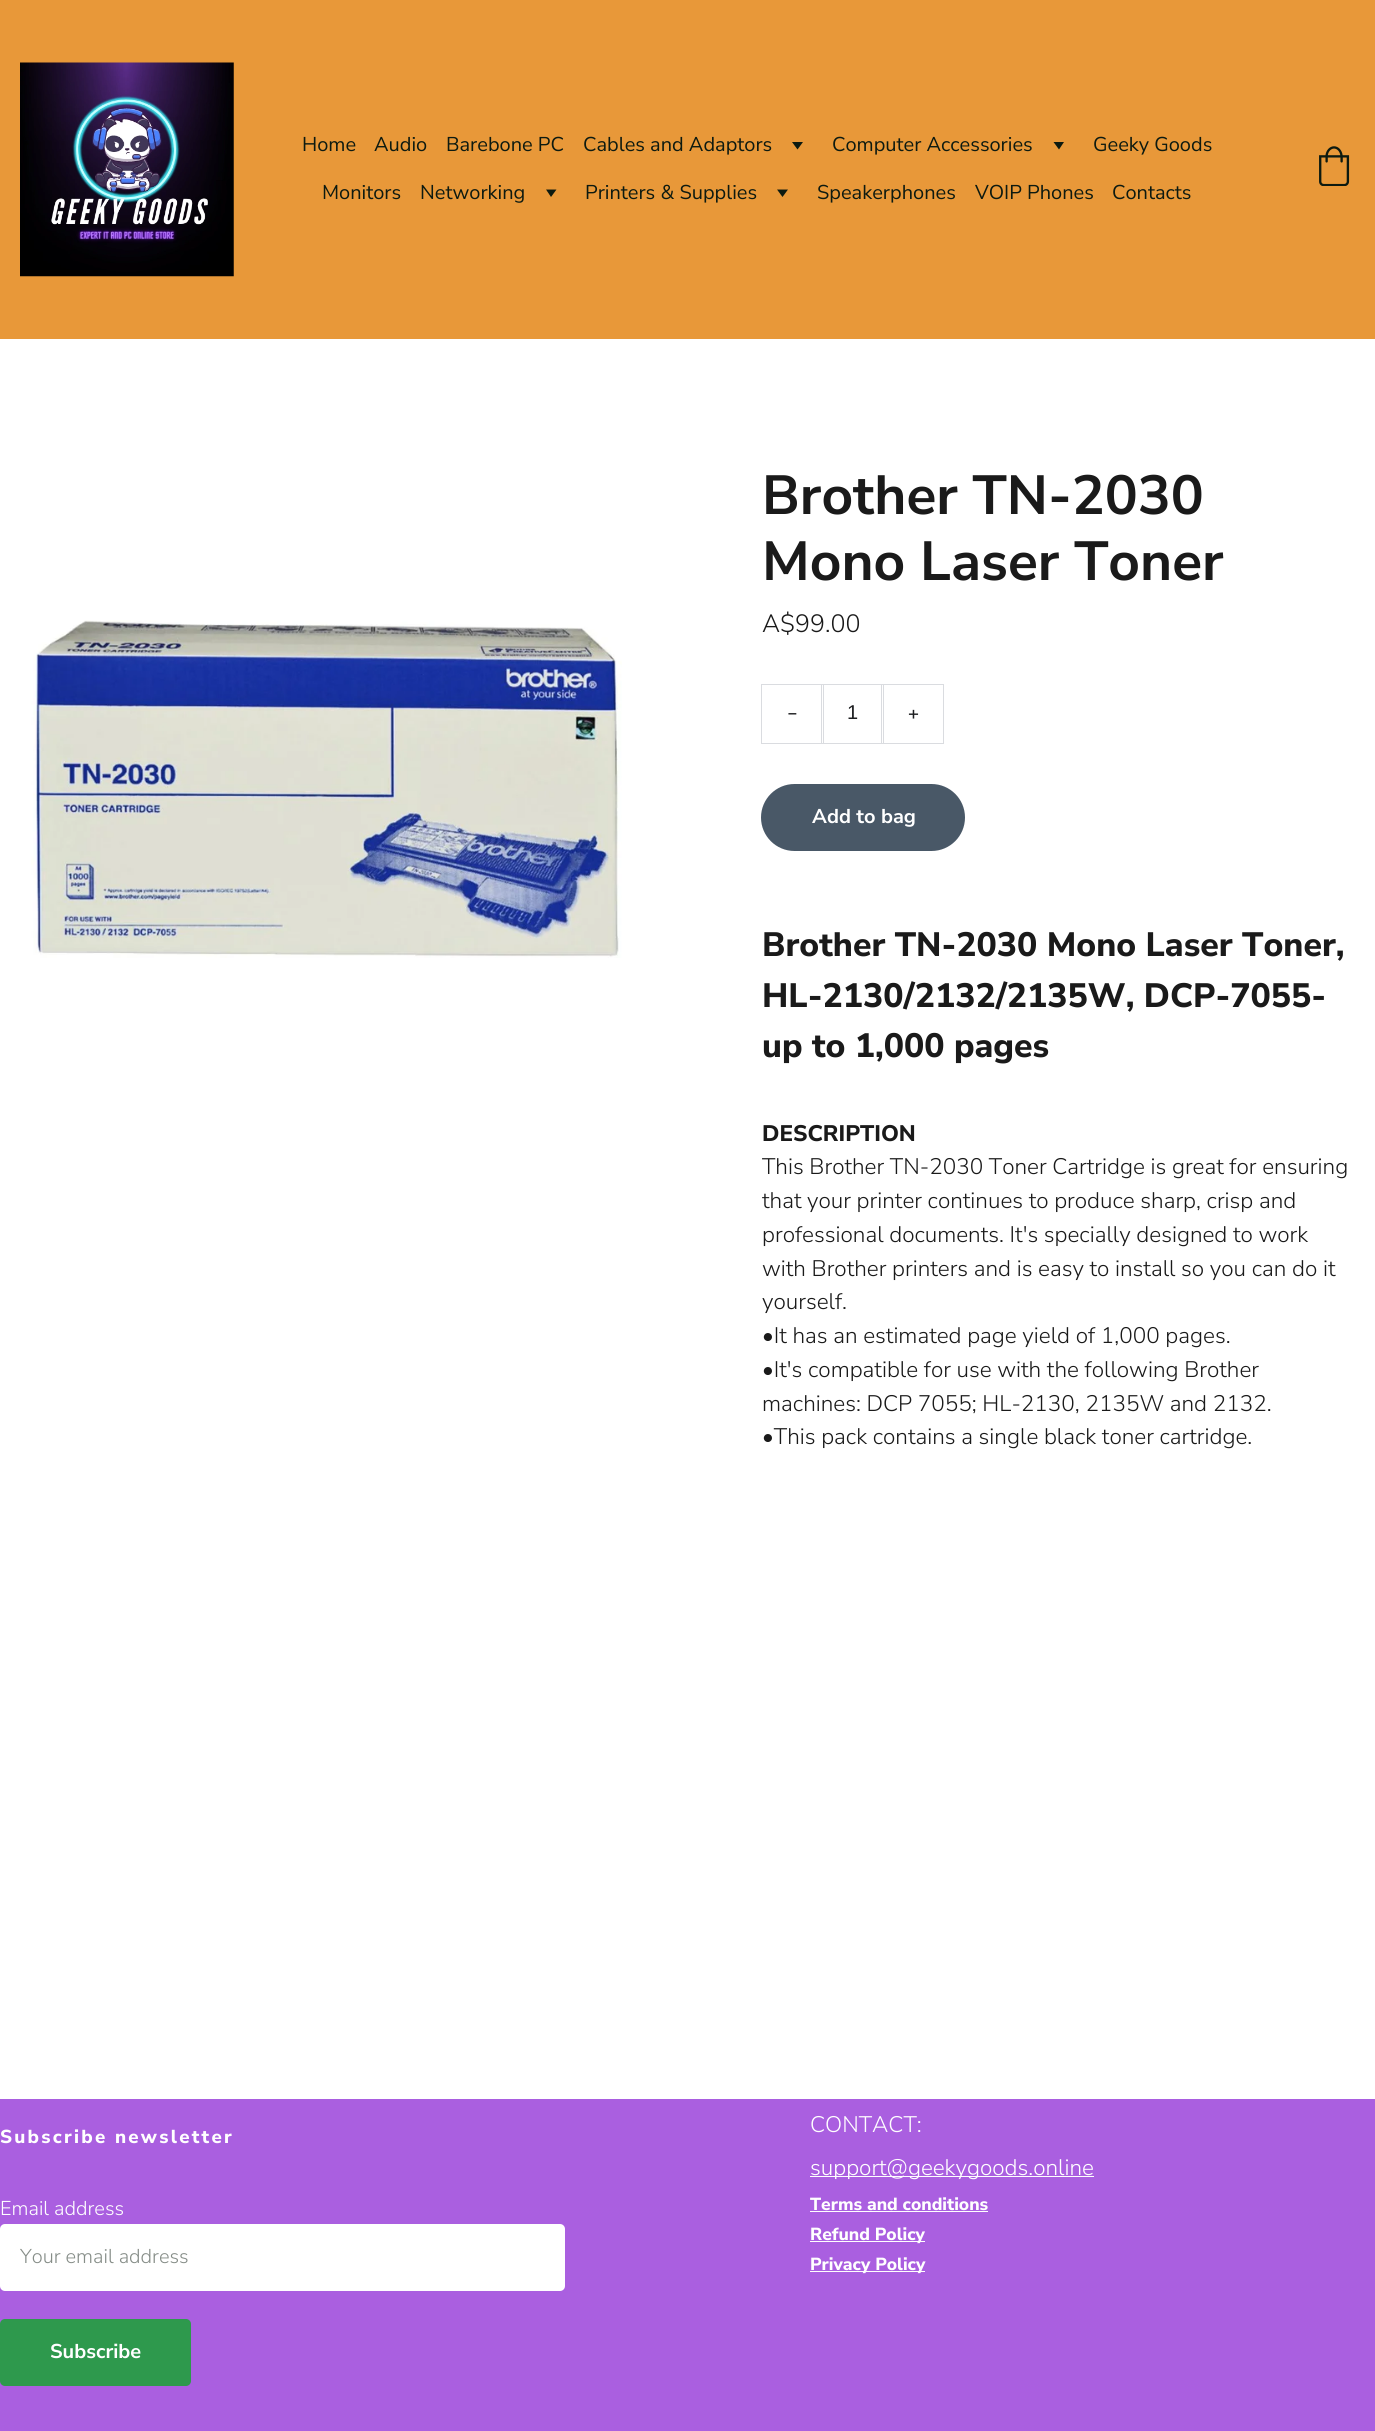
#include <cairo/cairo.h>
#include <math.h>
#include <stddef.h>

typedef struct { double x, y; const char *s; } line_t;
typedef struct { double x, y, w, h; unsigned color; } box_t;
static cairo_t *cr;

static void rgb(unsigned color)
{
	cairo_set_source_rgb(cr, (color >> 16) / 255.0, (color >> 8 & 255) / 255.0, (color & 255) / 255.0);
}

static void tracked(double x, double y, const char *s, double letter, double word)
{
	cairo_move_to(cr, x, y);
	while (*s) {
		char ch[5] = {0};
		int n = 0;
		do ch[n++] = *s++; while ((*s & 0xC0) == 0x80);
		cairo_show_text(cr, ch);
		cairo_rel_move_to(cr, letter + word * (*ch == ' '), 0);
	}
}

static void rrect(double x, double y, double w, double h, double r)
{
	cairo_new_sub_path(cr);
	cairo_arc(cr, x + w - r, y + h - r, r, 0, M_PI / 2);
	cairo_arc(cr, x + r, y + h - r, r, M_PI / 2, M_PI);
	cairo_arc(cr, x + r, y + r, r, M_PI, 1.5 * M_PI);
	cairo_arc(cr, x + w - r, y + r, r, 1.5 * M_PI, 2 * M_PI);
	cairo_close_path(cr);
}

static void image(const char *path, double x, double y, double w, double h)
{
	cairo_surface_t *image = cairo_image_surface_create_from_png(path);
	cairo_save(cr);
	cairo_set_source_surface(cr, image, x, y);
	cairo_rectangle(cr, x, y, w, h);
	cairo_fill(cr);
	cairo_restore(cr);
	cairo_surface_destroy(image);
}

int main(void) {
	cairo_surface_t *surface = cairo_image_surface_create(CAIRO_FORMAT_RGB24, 1375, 2431);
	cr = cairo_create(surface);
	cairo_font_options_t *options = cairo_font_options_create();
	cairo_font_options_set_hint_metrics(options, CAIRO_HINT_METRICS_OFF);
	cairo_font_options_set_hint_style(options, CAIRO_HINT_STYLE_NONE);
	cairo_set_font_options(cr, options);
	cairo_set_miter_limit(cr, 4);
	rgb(0xffffff);
	cairo_paint(cr);
	rgb(0xe89839);
	cairo_rectangle(cr, 0, 0, 1375, 339);
	cairo_fill(cr);
	image("img/1.png", 20, 62, 214, 215);
	rgb(0x0d1a10);
	cairo_new_path(cr);
	cairo_move_to(cr, 797.5, 149.5);
	cairo_line_to(cr, 792, 142);
	cairo_line_to(cr, 803, 142);
	cairo_close_path(cr);
	cairo_fill(cr);
	cairo_new_path(cr);
	cairo_move_to(cr, 1059, 149.5);
	cairo_line_to(cr, 1053.5, 142);
	cairo_line_to(cr, 1064, 142);
	cairo_close_path(cr);
	cairo_fill(cr);
	cairo_new_path(cr);
	cairo_move_to(cr, 551, 197);
	cairo_line_to(cr, 546, 189.5);
	cairo_line_to(cr, 556.5, 189.5);
	cairo_close_path(cr);
	cairo_fill(cr);
	cairo_new_path(cr);
	cairo_move_to(cr, 782.5, 197);
	cairo_line_to(cr, 777, 189.5);
	cairo_line_to(cr, 788, 189.5);
	cairo_close_path(cr);
	cairo_fill(cr);
	image("img/2.png", 1319, 146, 31, 40);
	image("img/3.png", 31, 620, 591, 338);
	cairo_rectangle(cr, 761.5, 684.5, 182, 59);
	rgb(0xdadce0);
	cairo_set_line_width(cr, 1);
	cairo_stroke(cr);
	{
		static const box_t items[] = {
			{821, 685, 1, 58, 0xdadce0},
			{881, 685, 1, 58, 0xdadce0},
			{823, 685, 1, 58, 0xdadce0},
			{883, 685, 1, 58, 0xdadce0},
		};
		for (size_t i = 0; i < sizeof items / sizeof *items; i++) {
			rgb(items[i].color);
			cairo_rectangle(cr, items[i].x, items[i].y, items[i].w, items[i].h);
			cairo_fill(cr);
		}
	}
	rgb(0x495867);
	rrect(761, 784, 204, 67, 33.5);
	cairo_fill(cr);
	rgb(0xaa5fe0);
	cairo_rectangle(cr, 0, 2099, 1375, 332);
	cairo_fill(cr);
	rgb(0xffffff);
	cairo_rectangle(cr, 810, 2176, 284, 1);
	cairo_fill(cr);
	rrect(0, 2224, 565, 67, 5);
	cairo_fill(cr);
	rgb(0x2e994d);
	rrect(0, 2319, 191, 67, 5);
	cairo_fill(cr);
	{
		static const box_t items[] = {
			{810, 2211, 178, 1, 0xffffff},
			{810, 2241, 115, 1, 0xffffff},
			{810, 2271, 115, 1, 0xffffff},
		};
		for (size_t i = 0; i < sizeof items / sizeof *items; i++) {
			rgb(items[i].color);
			cairo_rectangle(cr, items[i].x, items[i].y, items[i].w, items[i].h);
			cairo_fill(cr);
		}
	}
	cairo_select_font_face(cr, "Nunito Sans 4 ExtraLight", CAIRO_FONT_SLANT_NORMAL, CAIRO_FONT_WEIGHT_NORMAL);
	cairo_set_font_size(cr, 20);
	rgb(0x0d1a10);
	{
		static const line_t items[] = {
			{302, 151, "Home"},
			{374, 151, "Audio"},
			{446, 151, "Barebone PC"},
			{583, 151, "Cables and Adaptors"},
			{832, 151, "Computer Accessories"},
			{1093, 151, "Geeky Goods"},
			{322, 199, "Monitors"},
			{420, 199, "Networking"},
			{585, 199, "Printers & Supplies"},
			{817, 199, "Speakerphones"},
			{975, 199, "VOIP Phones"},
			{1112, 199, "Contacts"},
		};
		for (size_t i = 0; i < sizeof items / sizeof *items; i++) {
			cairo_move_to(cr, items[i].x, items[i].y);
			cairo_show_text(cr, items[i].s);
		}
	}
	cairo_select_font_face(cr, "Nunito Sans ExtraLight", CAIRO_FONT_SLANT_NORMAL, CAIRO_FONT_WEIGHT_NORMAL);
	cairo_set_font_size(cr, 55);
	rgb(0x1a1a1a);
	cairo_move_to(cr, 762, 514);
	cairo_show_text(cr, "Brother TN-2030");
	cairo_move_to(cr, 762, 580);
	cairo_show_text(cr, "Mono Laser Toner");
	cairo_select_font_face(cr, "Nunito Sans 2 ExtraLight", CAIRO_FONT_SLANT_NORMAL, CAIRO_FONT_WEIGHT_NORMAL);
	cairo_set_font_size(cr, 25);
	cairo_move_to(cr, 762, 632);
	cairo_show_text(cr, "A$99.00");
	cairo_select_font_face(cr, "DM Sans", CAIRO_FONT_SLANT_NORMAL, CAIRO_FONT_WEIGHT_NORMAL);
	cairo_set_font_size(cr, 20);
	rgb(0x1d1e20);
	cairo_move_to(cr, 787, 720);
	cairo_show_text(cr, "-");
	cairo_select_font_face(cr, "Liberation Sans", CAIRO_FONT_SLANT_NORMAL, CAIRO_FONT_WEIGHT_NORMAL);
	cairo_move_to(cr, 847, 719);
	cairo_show_text(cr, "1");
	cairo_select_font_face(cr, "DM Sans", CAIRO_FONT_SLANT_NORMAL, CAIRO_FONT_WEIGHT_NORMAL);
	cairo_move_to(cr, 908, 720);
	cairo_show_text(cr, "+");
	cairo_select_font_face(cr, "Nunito Sans ExtraLight", CAIRO_FONT_SLANT_NORMAL, CAIRO_FONT_WEIGHT_NORMAL);
	rgb(0xffffff);
	cairo_move_to(cr, 812, 823);
	cairo_show_text(cr, "Add to bag");
	cairo_select_font_face(cr, "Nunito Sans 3 ExtraLight", CAIRO_FONT_SLANT_NORMAL, CAIRO_FONT_WEIGHT_NORMAL);
	cairo_set_font_size(cr, 33.75);
	rgb(0x1a1a1a);
	{
		static const line_t items[] = {
			{762, 956, "Brother TN-2030 Mono Laser Toner,"},
			{762, 1007, "HL-2130/2132/2135W, DCP-7055-"},
			{762, 1057, "up to 1,000 pages"},
		};
		for (size_t i = 0; i < sizeof items / sizeof *items; i++) {
			cairo_move_to(cr, items[i].x, items[i].y);
			cairo_show_text(cr, items[i].s);
		}
	}
	cairo_set_font_size(cr, 22.5);
	cairo_move_to(cr, 762, 1141);
	cairo_show_text(cr, "DESCRIPTION");
	cairo_select_font_face(cr, "Nunito Sans 2 ExtraLight", CAIRO_FONT_SLANT_NORMAL, CAIRO_FONT_WEIGHT_NORMAL);
	{
		static const line_t items[] = {
			{762, 1174, "This Brother TN-2030 Toner Cartridge is great for ensuring"},
			{762, 1208, "that your printer continues to produce sharp, crisp and"},
			{762, 1242, "professional documents. It's specially designed to work"},
			{762, 1276, "with Brother printers and is easy to install so you can do it"},
			{762, 1309, "yourself."},
			{762, 1343, "•It has an estimated page yield of 1,000 pages."},
			{762, 1377, "•It's compatible for use with the following Brother"},
			{762, 1411, "machines: DCP 7055; HL-2130, 2135W and 2132."},
			{762, 1444, "•This pack contains a single black toner cartridge."},
		};
		for (size_t i = 0; i < sizeof items / sizeof *items; i++) {
			cairo_move_to(cr, items[i].x, items[i].y);
			cairo_show_text(cr, items[i].s);
		}
	}
	cairo_select_font_face(cr, "Nunito Sans 3 ExtraLight", CAIRO_FONT_SLANT_NORMAL, CAIRO_FONT_WEIGHT_NORMAL);
	cairo_set_font_size(cr, 18.75);
	rgb(0xffffff);
	tracked(0, 2143, "Subscribe newsletter", 2.25, 0);
	cairo_select_font_face(cr, "Nunito Sans 2 ExtraLight", CAIRO_FONT_SLANT_NORMAL, CAIRO_FONT_WEIGHT_NORMAL);
	cairo_set_font_size(cr, 22.5);
	cairo_move_to(cr, 810, 2132);
	cairo_show_text(cr, "CONTACT:");
	cairo_move_to(cr, 810, 2175);
	cairo_show_text(cr, "support@geekygoods.online");
	cairo_set_font_size(cr, 20);
	cairo_move_to(cr, 0, 2215);
	cairo_show_text(cr, "Email address");
	rgb(0x868d88);
	cairo_move_to(cr, 20, 2263);
	cairo_show_text(cr, "Your email address");
	cairo_select_font_face(cr, "Nunito Sans ExtraLight", CAIRO_FONT_SLANT_NORMAL, CAIRO_FONT_WEIGHT_NORMAL);
	rgb(0xffffff);
	cairo_move_to(cr, 50, 2358);
	cairo_show_text(cr, "Subscribe");
	cairo_select_font_face(cr, "Nunito Sans 3 ExtraLight", CAIRO_FONT_SLANT_NORMAL, CAIRO_FONT_WEIGHT_NORMAL);
	cairo_set_font_size(cr, 17.5);
	{
		static const line_t items[] = {
			{810, 2210, "Terms and conditions"},
			{810, 2240, "Refund Policy"},
			{810, 2270, "Privacy Policy"},
		};
		for (size_t i = 0; i < sizeof items / sizeof *items; i++) {
			cairo_move_to(cr, items[i].x, items[i].y);
			cairo_show_text(cr, items[i].s);
		}
	}
	cairo_surface_write_to_png(surface, "page.png");
	cairo_font_options_destroy(options);
	cairo_destroy(cr);
	cairo_surface_destroy(surface);
	return 0;
}
